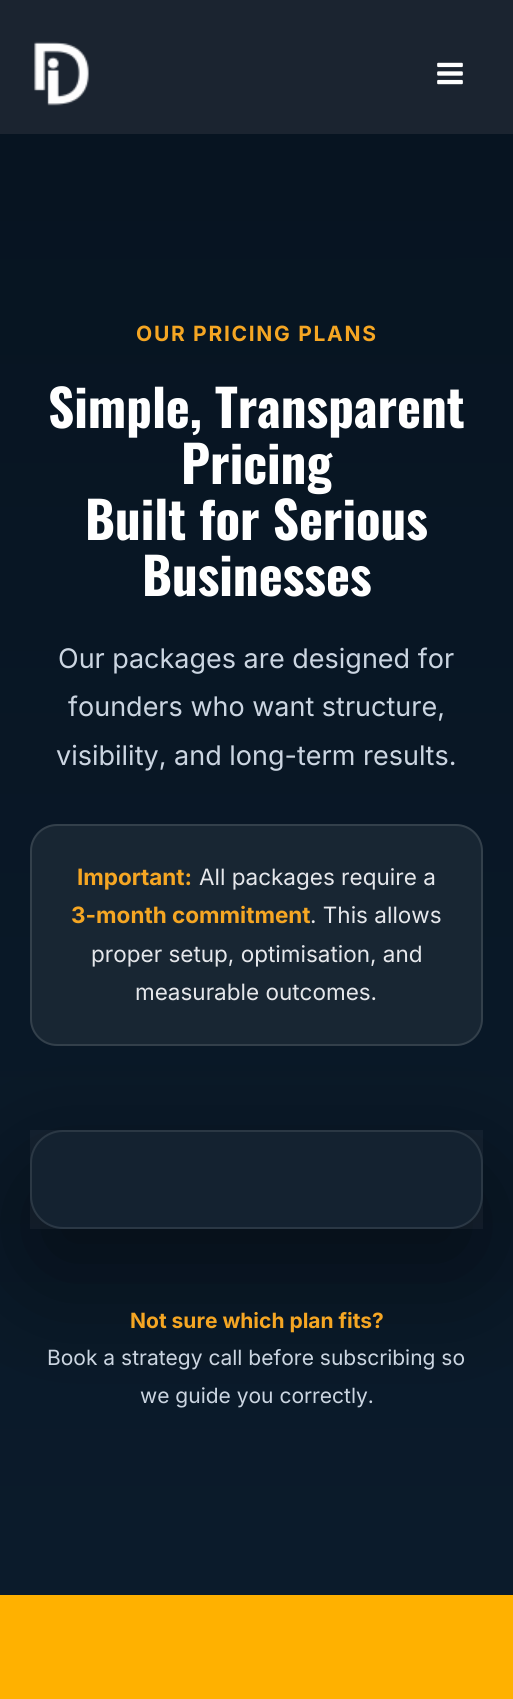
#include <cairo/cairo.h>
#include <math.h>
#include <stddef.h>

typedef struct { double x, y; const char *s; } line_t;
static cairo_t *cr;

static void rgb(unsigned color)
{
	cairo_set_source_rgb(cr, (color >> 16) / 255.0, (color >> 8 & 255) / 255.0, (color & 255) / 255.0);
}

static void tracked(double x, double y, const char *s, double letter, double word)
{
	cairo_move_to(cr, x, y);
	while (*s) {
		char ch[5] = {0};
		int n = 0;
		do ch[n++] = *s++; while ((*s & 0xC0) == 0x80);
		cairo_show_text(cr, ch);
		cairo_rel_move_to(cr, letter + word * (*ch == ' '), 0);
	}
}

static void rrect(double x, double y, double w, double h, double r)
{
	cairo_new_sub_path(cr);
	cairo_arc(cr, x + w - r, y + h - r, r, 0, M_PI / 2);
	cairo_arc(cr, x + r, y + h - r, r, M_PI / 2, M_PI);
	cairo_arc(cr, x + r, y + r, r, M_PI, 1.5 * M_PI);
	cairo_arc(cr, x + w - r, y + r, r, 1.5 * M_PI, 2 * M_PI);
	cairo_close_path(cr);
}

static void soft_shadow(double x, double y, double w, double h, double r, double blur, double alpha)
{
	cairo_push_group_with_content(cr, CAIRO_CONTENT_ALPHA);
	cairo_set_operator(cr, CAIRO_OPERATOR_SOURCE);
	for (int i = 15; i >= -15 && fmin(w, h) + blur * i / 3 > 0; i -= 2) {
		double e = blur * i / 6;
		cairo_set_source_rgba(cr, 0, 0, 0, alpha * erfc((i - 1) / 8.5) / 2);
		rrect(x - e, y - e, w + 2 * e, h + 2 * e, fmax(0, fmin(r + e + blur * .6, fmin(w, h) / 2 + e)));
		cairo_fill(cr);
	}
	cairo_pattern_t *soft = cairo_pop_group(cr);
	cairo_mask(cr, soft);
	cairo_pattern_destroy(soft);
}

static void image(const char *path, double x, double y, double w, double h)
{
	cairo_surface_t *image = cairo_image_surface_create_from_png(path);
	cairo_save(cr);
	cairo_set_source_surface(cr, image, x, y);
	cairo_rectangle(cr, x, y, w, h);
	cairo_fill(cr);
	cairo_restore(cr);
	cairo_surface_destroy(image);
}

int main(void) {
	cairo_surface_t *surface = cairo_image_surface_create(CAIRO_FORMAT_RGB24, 513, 1699);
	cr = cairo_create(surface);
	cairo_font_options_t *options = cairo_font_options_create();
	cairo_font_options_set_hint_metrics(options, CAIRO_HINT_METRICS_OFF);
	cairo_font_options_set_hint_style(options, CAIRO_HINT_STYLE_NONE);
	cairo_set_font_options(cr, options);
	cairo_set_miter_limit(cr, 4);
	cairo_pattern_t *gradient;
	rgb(0x1b2430);
	cairo_paint(cr);
	image("img/1.png", 34, 41, 55, 65);
	image("img/2.png", 437, 62, 26, 23);
	gradient = cairo_pattern_create_linear(256, 134, 257, 1595);
	cairo_pattern_add_color_stop_rgba(gradient, 0, 0.027, 0.078, 0.129, 1);
	cairo_pattern_add_color_stop_rgba(gradient, 1, 0.043, 0.106, 0.169, 1);
	cairo_set_source(cr, gradient);
	cairo_pattern_destroy(gradient);
	cairo_rectangle(cr, 0, 134, 513, 1461);
	cairo_fill(cr);
	rgb(0x182633);
	rrect(30, 824, 453, 222, 27);
	cairo_fill(cr);
	rrect(31, 825, 451, 220, 26);
	cairo_set_source_rgba(cr, 1, 1, 1, 0.12);
	cairo_stroke(cr);
	cairo_save(cr);
	cairo_set_fill_rule(cr, CAIRO_FILL_RULE_EVEN_ODD);
	cairo_new_path(cr);
	cairo_move_to(cr, 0, 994);
	cairo_line_to(cr, 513, 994);
	cairo_line_to(cr, 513, 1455);
	cairo_line_to(cr, 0, 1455);
	cairo_close_path(cr);
	cairo_move_to(cr, 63, 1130);
	cairo_line_to(cr, 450, 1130);
	cairo_curve_to(cr, 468, 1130, 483, 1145, 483, 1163);
	cairo_line_to(cr, 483, 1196);
	cairo_curve_to(cr, 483, 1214, 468, 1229, 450, 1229);
	cairo_line_to(cr, 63, 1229);
	cairo_curve_to(cr, 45, 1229, 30, 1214, 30, 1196);
	cairo_line_to(cr, 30, 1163);
	cairo_curve_to(cr, 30, 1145, 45, 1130, 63, 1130);
	cairo_close_path(cr);
	cairo_clip(cr);
	rgb(0x000000);
	soft_shadow(30, 1175, 453, 99, 33, 60, 0.45);
	cairo_restore(cr);
	cairo_set_source_rgba(cr, 1, 1, 1, 0.04);
	cairo_rectangle(cr, 30, 1130, 453, 99);
	cairo_fill(cr);
	rrect(31, 1131, 451, 97, 32);
	cairo_set_source_rgba(cr, 1, 1, 1, 0.1);
	cairo_stroke(cr);
	rgb(0xffb100);
	cairo_rectangle(cr, 0, 1595, 513, 104);
	cairo_fill(cr);
	cairo_select_font_face(cr, "Inter", CAIRO_FONT_SLANT_NORMAL, CAIRO_FONT_WEIGHT_BOLD);
	cairo_set_font_size(cr, 21);
	rgb(0xf5a623);
	tracked(136, 341, "OUR PRICING PLANS", 1.7, 0);
	cairo_select_font_face(cr, "Oswald", CAIRO_FONT_SLANT_NORMAL, CAIRO_FONT_WEIGHT_BOLD);
	cairo_set_font_size(cr, 51);
	rgb(0xffffff);
	{
		static const line_t items[] = {
			{48, 428, "Simple, Transparent"},
			{181, 484, "Pricing"},
			{85, 540, "Built for Serious"},
			{142, 596, "Businesses"},
		};
		for (size_t i = 0; i < sizeof items / sizeof *items; i++) {
			cairo_move_to(cr, items[i].x, items[i].y);
			cairo_show_text(cr, items[i].s);
		}
	}
	cairo_select_font_face(cr, "Inter", CAIRO_FONT_SLANT_NORMAL, CAIRO_FONT_WEIGHT_NORMAL);
	cairo_set_font_size(cr, 27);
	rgb(0xcbd5e1);
	{
		static const line_t items[] = {
			{58, 668, "Our packages are designed for"},
			{68, 716, "founders who want structure,"},
			{56, 765, "visibility, and long-term results."},
		};
		for (size_t i = 0; i < sizeof items / sizeof *items; i++) {
			cairo_move_to(cr, items[i].x, items[i].y);
			cairo_show_text(cr, items[i].s);
		}
	}
	cairo_select_font_face(cr, "Inter", CAIRO_FONT_SLANT_NORMAL, CAIRO_FONT_WEIGHT_BOLD);
	cairo_set_font_size(cr, 22.5);
	rgb(0xf5a623);
	cairo_move_to(cr, 77, 885);
	cairo_show_text(cr, "Important:");
	cairo_select_font_face(cr, "Inter", CAIRO_FONT_SLANT_NORMAL, CAIRO_FONT_WEIGHT_NORMAL);
	rgb(0xe5e7eb);
	cairo_move_to(cr, 199, 885);
	cairo_show_text(cr, "All packages require a");
	cairo_select_font_face(cr, "Inter", CAIRO_FONT_SLANT_NORMAL, CAIRO_FONT_WEIGHT_BOLD);
	rgb(0xf5a623);
	cairo_move_to(cr, 71, 923);
	cairo_show_text(cr, "3-month commitment");
	cairo_select_font_face(cr, "Inter", CAIRO_FONT_SLANT_NORMAL, CAIRO_FONT_WEIGHT_NORMAL);
	rgb(0xe5e7eb);
	{
		static const line_t items[] = {
			{310, 923, ". This allows"},
			{91, 962, "proper setup, optimisation, and"},
			{135, 1000, "measurable outcomes."},
		};
		for (size_t i = 0; i < sizeof items / sizeof *items; i++) {
			cairo_move_to(cr, items[i].x, items[i].y);
			cairo_show_text(cr, items[i].s);
		}
	}
	cairo_select_font_face(cr, "Inter", CAIRO_FONT_SLANT_NORMAL, CAIRO_FONT_WEIGHT_BOLD);
	cairo_set_font_size(cr, 21);
	rgb(0xf5a623);
	cairo_move_to(cr, 130, 1328);
	cairo_show_text(cr, "Not sure which plan fits?");
	cairo_select_font_face(cr, "Inter", CAIRO_FONT_SLANT_NORMAL, CAIRO_FONT_WEIGHT_NORMAL);
	rgb(0xcbd5e1);
	cairo_move_to(cr, 47, 1365);
	cairo_show_text(cr, "Book a strategy call before subscribing so");
	cairo_move_to(cr, 140, 1403);
	cairo_show_text(cr, "we guide you correctly.");
	cairo_surface_write_to_png(surface, "page.png");
	cairo_font_options_destroy(options);
	cairo_destroy(cr);
	cairo_surface_destroy(surface);
	return 0;
}
